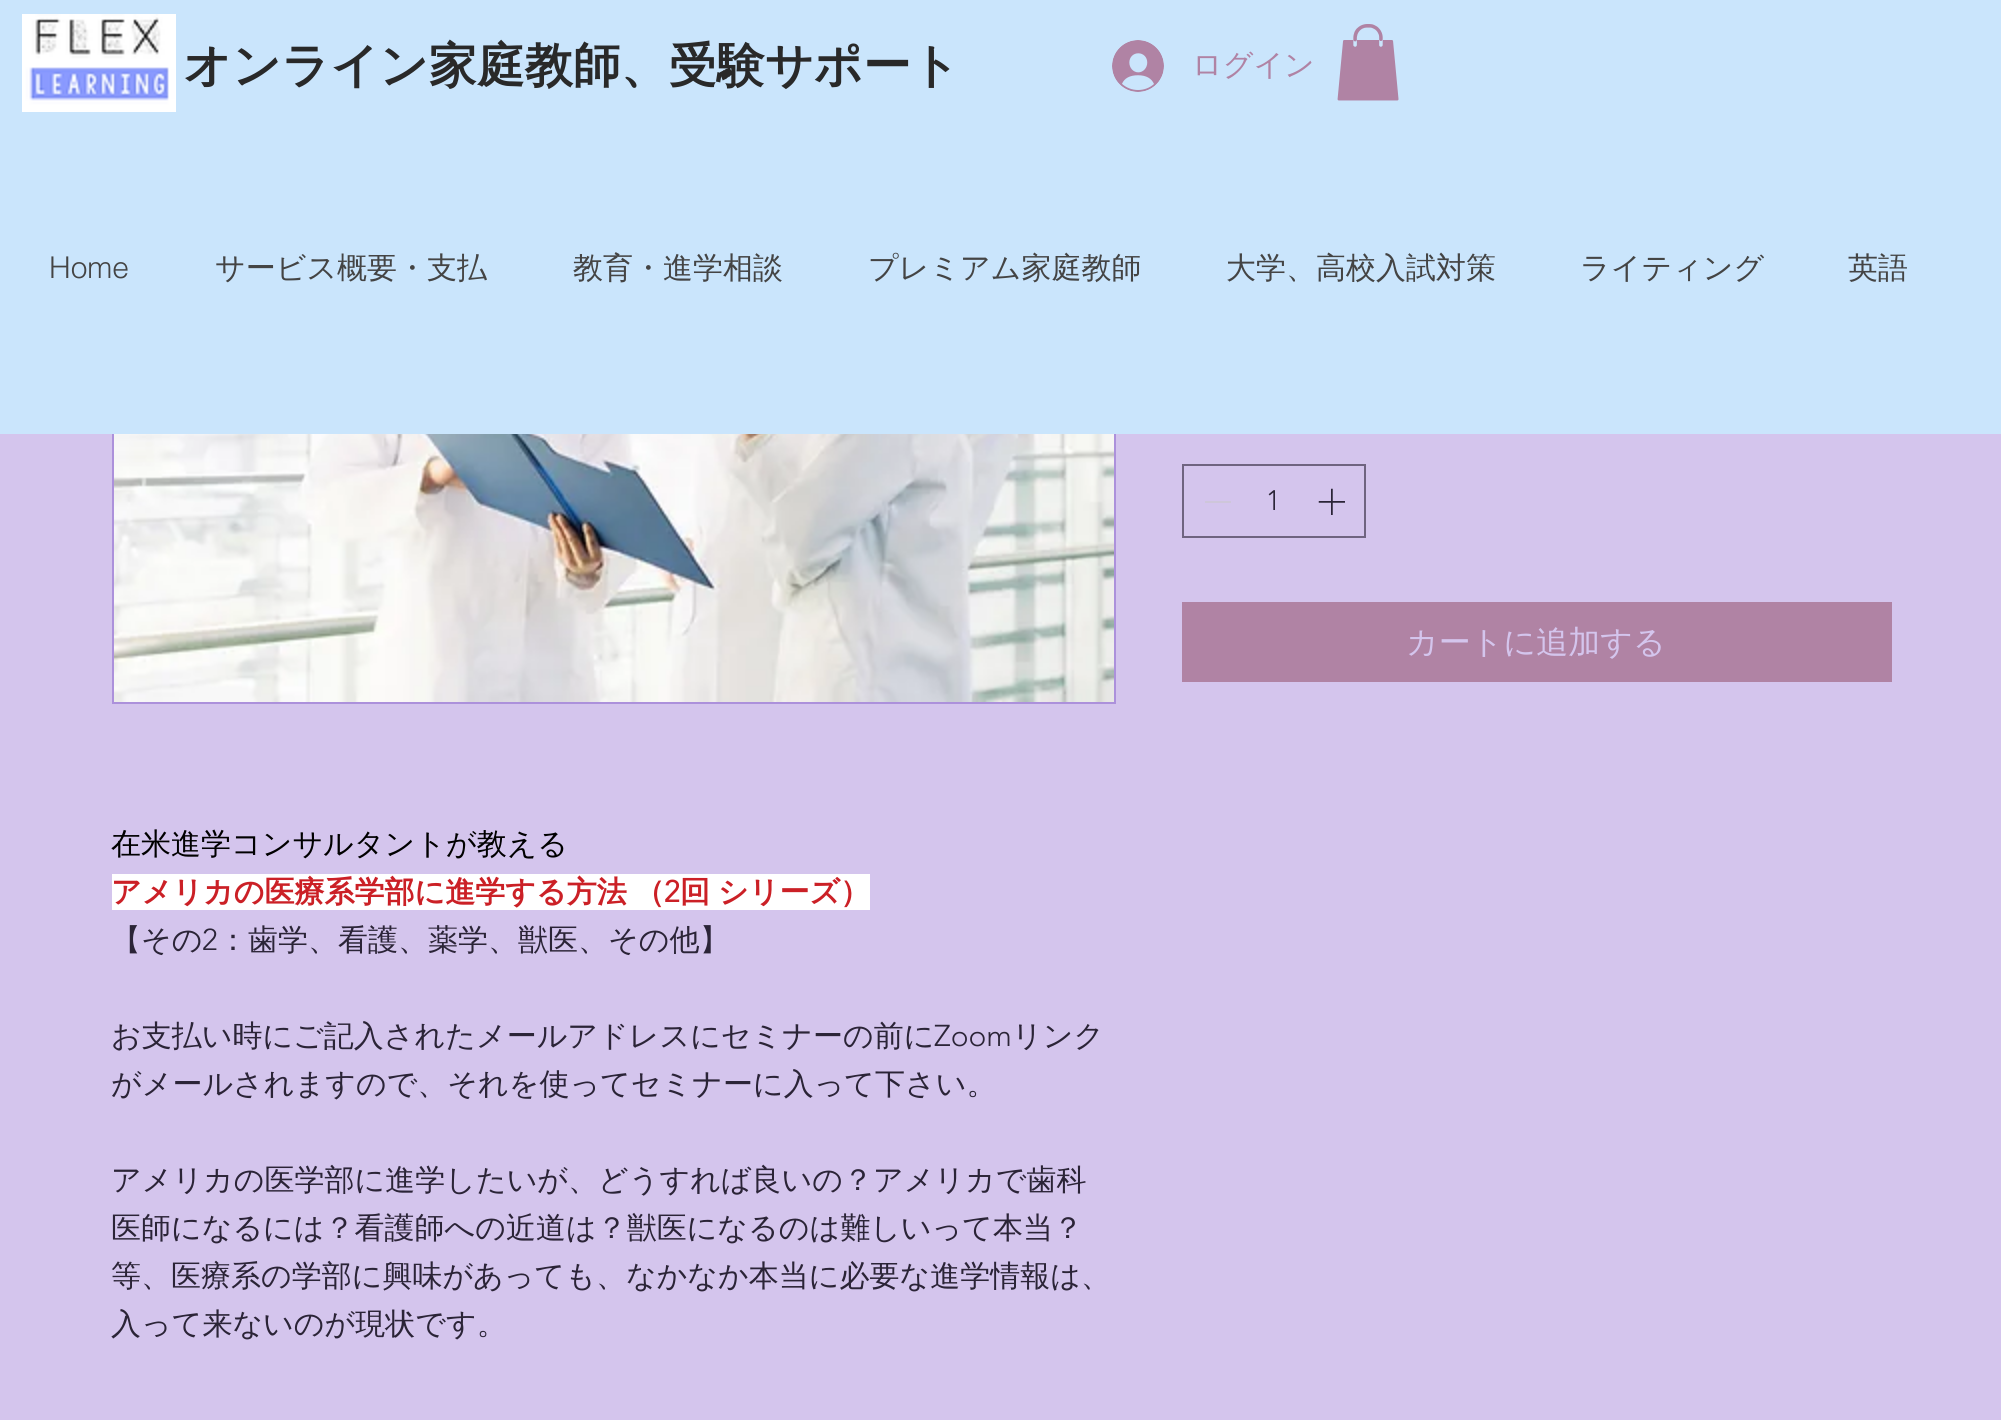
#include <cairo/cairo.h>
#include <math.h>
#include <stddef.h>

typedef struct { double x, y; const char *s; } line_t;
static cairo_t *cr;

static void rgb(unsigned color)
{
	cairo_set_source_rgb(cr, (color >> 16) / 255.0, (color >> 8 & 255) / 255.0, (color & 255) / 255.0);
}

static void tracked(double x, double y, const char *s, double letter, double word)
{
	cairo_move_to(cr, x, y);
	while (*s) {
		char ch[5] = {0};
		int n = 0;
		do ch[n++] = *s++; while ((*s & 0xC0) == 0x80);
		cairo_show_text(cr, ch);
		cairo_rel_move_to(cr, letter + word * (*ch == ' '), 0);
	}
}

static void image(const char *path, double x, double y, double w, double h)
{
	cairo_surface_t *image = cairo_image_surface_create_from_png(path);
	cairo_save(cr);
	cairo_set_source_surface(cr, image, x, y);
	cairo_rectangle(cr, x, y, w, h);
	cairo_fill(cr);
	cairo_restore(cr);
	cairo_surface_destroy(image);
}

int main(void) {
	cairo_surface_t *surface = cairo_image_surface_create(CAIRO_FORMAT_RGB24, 2001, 1420);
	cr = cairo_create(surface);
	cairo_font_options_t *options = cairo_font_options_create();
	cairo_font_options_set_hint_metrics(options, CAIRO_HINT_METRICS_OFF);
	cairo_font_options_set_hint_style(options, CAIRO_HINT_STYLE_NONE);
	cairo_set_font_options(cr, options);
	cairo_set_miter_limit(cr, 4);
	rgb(0xd4c5ed);
	cairo_paint(cr);
	cairo_rectangle(cr, 113, 77, 1002, 626);
	rgb(0xac91db);
	cairo_stroke(cr);
	rgb(0xcae5fc);
	cairo_rectangle(cr, 0, 0, 2001, 434);
	cairo_fill(cr);
	image("img/1.png", 22, 14, 154, 98);
	image("img/2.png", 1112, 40, 52, 52);
	image("img/3.png", 1337, 24, 62, 77);
	cairo_rectangle(cr, 1183, 465, 182, 72);
	rgb(0x6f6480);
	cairo_stroke(cr);
	rgb(0xcec6da);
	cairo_rectangle(cr, 1205, 501, 26, 2);
	cairo_fill(cr);
	image("img/4.png", 1318, 488, 27, 27);
	rgb(0xb083a4);
	cairo_rectangle(cr, 1182, 602, 710, 80);
	cairo_fill(cr);
	image("img/5.png", 114, 434, 1000, 268);
	rgb(0xffffff);
	cairo_rectangle(cr, 112, 874, 758, 36);
	cairo_fill(cr);
	cairo_select_font_face(cr, "WenQuanYi Zen Hei", CAIRO_FONT_SLANT_NORMAL, CAIRO_FONT_WEIGHT_BOLD);
	cairo_set_font_size(cr, 48);
	rgb(0x292929);
	cairo_move_to(cr, 183, 82);
	cairo_show_text(cr, "オンライン家庭教師、受験サポート");
	cairo_select_font_face(cr, "WenQuanYi Zen Hei Medium", CAIRO_FONT_SLANT_NORMAL, CAIRO_FONT_WEIGHT_NORMAL);
	cairo_set_font_size(cr, 30);
	rgb(0xb083a4);
	cairo_move_to(cr, 1192, 75);
	cairo_show_text(cr, "ログイン");
	cairo_select_font_face(cr, "helvetica Light", CAIRO_FONT_SLANT_NORMAL, CAIRO_FONT_WEIGHT_NORMAL);
	rgb(0x444444);
	cairo_move_to(cr, 49, 278);
	cairo_show_text(cr, "Home");
	cairo_select_font_face(cr, "WenQuanYi Zen Hei Medium", CAIRO_FONT_SLANT_NORMAL, CAIRO_FONT_WEIGHT_NORMAL);
	{
		static const line_t items[] = {
			{215, 278, "サービス概要・支払"},
			{573, 278, "教育・進学相談"},
			{868, 278, "プレミアム家庭教師"},
			{1226, 278, "大学、高校入試対策"},
			{1580, 278, "ライティング"},
			{1848, 278, "英語"},
		};
		for (size_t i = 0; i < sizeof items / sizeof *items; i++) {
			cairo_move_to(cr, items[i].x, items[i].y);
			cairo_show_text(cr, items[i].s);
		}
	}
	cairo_select_font_face(cr, "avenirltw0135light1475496 Light", CAIRO_FONT_SLANT_NORMAL, CAIRO_FONT_WEIGHT_NORMAL);
	cairo_set_font_size(cr, 28);
	rgb(0x2b2437);
	cairo_move_to(cr, 1266, 510);
	cairo_show_text(cr, "1");
	cairo_select_font_face(cr, "WenQuanYi Zen Hei Medium", CAIRO_FONT_SLANT_NORMAL, CAIRO_FONT_WEIGHT_NORMAL);
	cairo_set_font_size(cr, 32);
	rgb(0xd4c5ed);
	cairo_move_to(cr, 1406, 653);
	cairo_show_text(cr, "カートに追加する");
	cairo_set_font_size(cr, 30);
	rgb(0x000000);
	cairo_move_to(cr, 111, 854);
	cairo_show_text(cr, "在米進学コンサルタントが教える");
	cairo_select_font_face(cr, "WenQuanYi Zen Hei", CAIRO_FONT_SLANT_NORMAL, CAIRO_FONT_WEIGHT_BOLD);
	rgb(0xcb2026);
	tracked(111, 902, "アメリカの医療系学部に進学する方法 （", 0, -1);
	cairo_select_font_face(cr, "avenirltw0135light1475496", CAIRO_FONT_SLANT_NORMAL, CAIRO_FONT_WEIGHT_BOLD);
	cairo_move_to(cr, 664, 902);
	cairo_show_text(cr, "2");
	cairo_select_font_face(cr, "WenQuanYi Zen Hei", CAIRO_FONT_SLANT_NORMAL, CAIRO_FONT_WEIGHT_BOLD);
	tracked(680, 902, "回 シリーズ）", 0, -1);
	cairo_select_font_face(cr, "WenQuanYi Zen Hei Medium", CAIRO_FONT_SLANT_NORMAL, CAIRO_FONT_WEIGHT_NORMAL);
	rgb(0x2b2437);
	cairo_move_to(cr, 111, 950);
	cairo_show_text(cr, "【その");
	cairo_select_font_face(cr, "avenirltw0135light1475496 Light", CAIRO_FONT_SLANT_NORMAL, CAIRO_FONT_WEIGHT_NORMAL);
	cairo_move_to(cr, 202, 950);
	cairo_show_text(cr, "2");
	cairo_select_font_face(cr, "WenQuanYi Zen Hei Medium", CAIRO_FONT_SLANT_NORMAL, CAIRO_FONT_WEIGHT_NORMAL);
	cairo_move_to(cr, 218, 950);
	cairo_show_text(cr, "：歯学、看護、薬学、獣医、その他】");
	cairo_move_to(cr, 111, 1046);
	cairo_show_text(cr, "お支払い時にご記入されたメールアドレスにセミナーの前に");
	cairo_select_font_face(cr, "avenirltw0135light1475496 Light", CAIRO_FONT_SLANT_NORMAL, CAIRO_FONT_WEIGHT_NORMAL);
	cairo_move_to(cr, 934, 1046);
	cairo_show_text(cr, "Zoom");
	cairo_select_font_face(cr, "WenQuanYi Zen Hei Medium", CAIRO_FONT_SLANT_NORMAL, CAIRO_FONT_WEIGHT_NORMAL);
	{
		static const line_t items[] = {
			{1012, 1046, "リンク"},
			{111, 1094, "がメールされますので、それを使ってセミナーに入って下さい。"},
			{111, 1190, "アメリカの医学部に進学したいが、どうすれば良いの？アメリカで歯科"},
			{111, 1238, "医師になるには？看護師への近道は？獣医になるのは難しいって本当？"},
			{111, 1286, "等、医療系の学部に興味があっても、なかなか本当に必要な進学情報は、"},
			{111, 1334, "入って来ないのが現状です。"},
		};
		for (size_t i = 0; i < sizeof items / sizeof *items; i++) {
			cairo_move_to(cr, items[i].x, items[i].y);
			cairo_show_text(cr, items[i].s);
		}
	}
	cairo_surface_write_to_png(surface, "page.png");
	cairo_font_options_destroy(options);
	cairo_destroy(cr);
	cairo_surface_destroy(surface);
	return 0;
}
